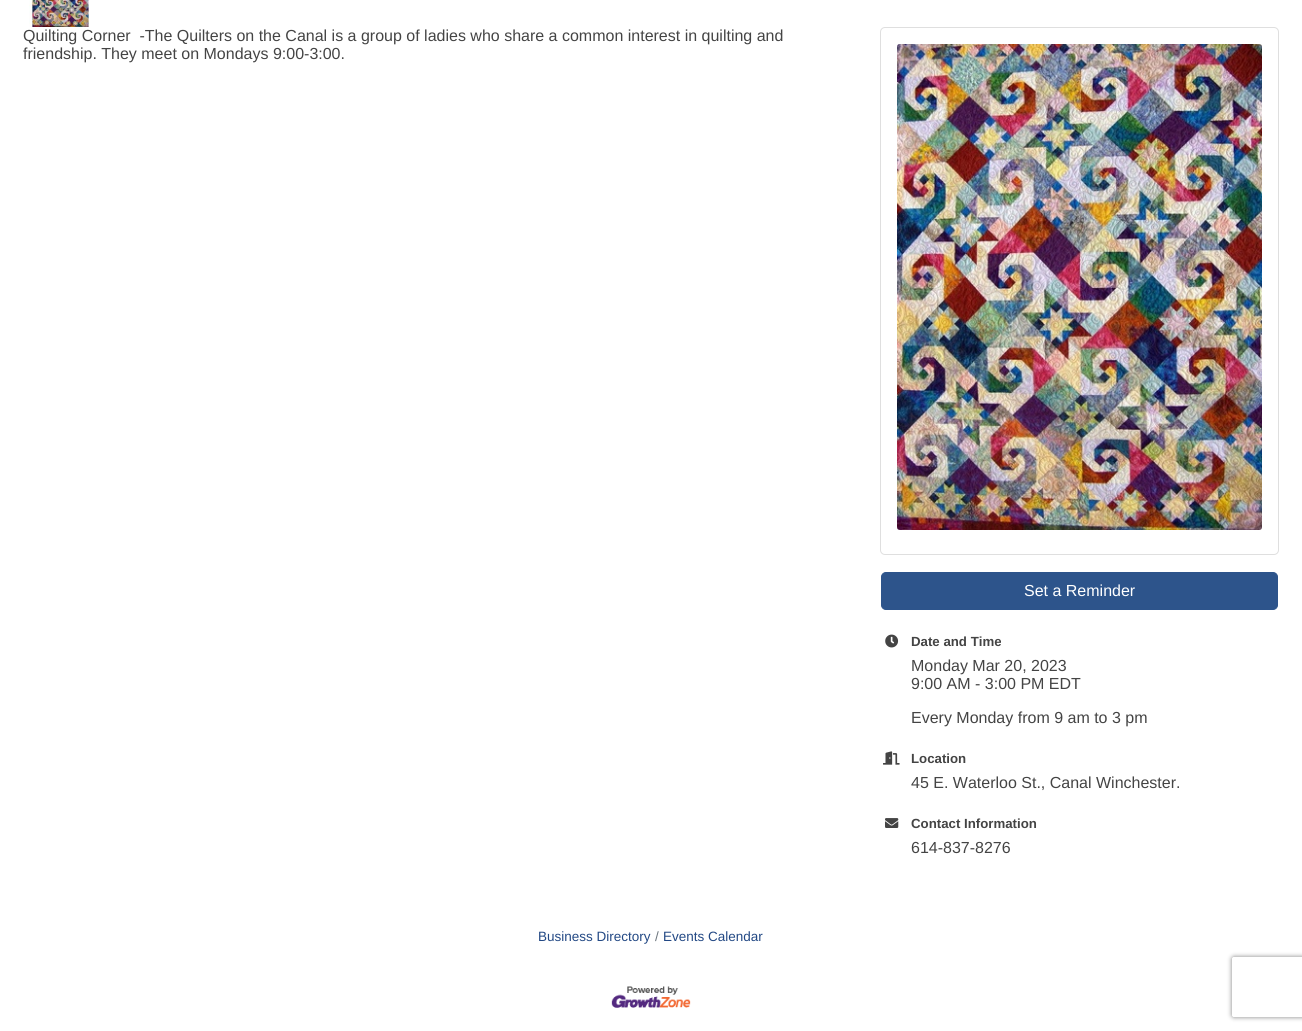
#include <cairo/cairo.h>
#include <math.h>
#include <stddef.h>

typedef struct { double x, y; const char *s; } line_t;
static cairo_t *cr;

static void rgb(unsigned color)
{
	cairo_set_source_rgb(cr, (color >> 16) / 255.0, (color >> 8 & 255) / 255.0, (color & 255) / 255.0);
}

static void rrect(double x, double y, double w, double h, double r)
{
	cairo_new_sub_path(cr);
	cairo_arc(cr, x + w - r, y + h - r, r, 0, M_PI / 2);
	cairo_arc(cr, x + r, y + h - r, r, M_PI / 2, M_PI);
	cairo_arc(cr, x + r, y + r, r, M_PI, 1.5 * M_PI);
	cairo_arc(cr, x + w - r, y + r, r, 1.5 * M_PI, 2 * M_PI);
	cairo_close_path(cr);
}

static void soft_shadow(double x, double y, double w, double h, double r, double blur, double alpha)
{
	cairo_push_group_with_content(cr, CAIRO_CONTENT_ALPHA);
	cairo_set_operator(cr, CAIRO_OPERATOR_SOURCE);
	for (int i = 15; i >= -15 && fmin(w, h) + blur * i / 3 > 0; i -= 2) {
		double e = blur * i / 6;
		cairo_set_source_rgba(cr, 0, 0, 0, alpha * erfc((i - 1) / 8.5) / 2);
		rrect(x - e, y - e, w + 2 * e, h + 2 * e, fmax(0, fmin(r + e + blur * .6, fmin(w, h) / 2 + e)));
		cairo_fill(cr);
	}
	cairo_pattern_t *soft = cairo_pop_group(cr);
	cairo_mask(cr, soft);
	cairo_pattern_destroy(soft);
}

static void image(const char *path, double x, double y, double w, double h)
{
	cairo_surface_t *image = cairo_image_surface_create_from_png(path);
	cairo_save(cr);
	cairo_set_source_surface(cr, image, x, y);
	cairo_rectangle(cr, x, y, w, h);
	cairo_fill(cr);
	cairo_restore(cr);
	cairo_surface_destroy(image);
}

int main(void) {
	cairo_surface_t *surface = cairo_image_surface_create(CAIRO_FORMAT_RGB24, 1302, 1031);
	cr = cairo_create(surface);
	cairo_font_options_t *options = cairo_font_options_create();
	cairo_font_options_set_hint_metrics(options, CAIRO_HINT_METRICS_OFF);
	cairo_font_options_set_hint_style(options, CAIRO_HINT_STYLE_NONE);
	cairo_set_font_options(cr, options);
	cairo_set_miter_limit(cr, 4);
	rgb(0xffffff);
	cairo_paint(cr);
	image("img/1.png", 29, 0, 60, 27);
	rrect(880.5, 27.5, 398, 527, 4.5);
	rgb(0xdfdfdf);
	cairo_set_line_width(cr, 1);
	cairo_stroke(cr);
	image("img/2.png", 897, 44, 365, 486);
	rgb(0x2d548b);
	rrect(881.5, 572.5, 396, 37, 4.5);
	cairo_fill_preserve(cr);
	cairo_stroke(cr);
	image("img/3.png", 885, 634, 14, 14);
	image("img/4.png", 883, 751, 17, 14);
	image("img/5.png", 885, 818, 14, 10);
	image("img/6.png", 611, 986, 80, 22);
	cairo_save(cr);
	cairo_set_fill_rule(cr, CAIRO_FILL_RULE_EVEN_ODD);
	cairo_new_path(cr);
	cairo_move_to(cr, 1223, 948);
	cairo_line_to(cr, 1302, 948);
	cairo_line_to(cr, 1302, 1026);
	cairo_line_to(cr, 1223, 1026);
	cairo_close_path(cr);
	cairo_move_to(cr, 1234, 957);
	cairo_line_to(cr, 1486, 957);
	cairo_curve_to(cr, 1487, 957, 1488, 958, 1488, 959);
	cairo_line_to(cr, 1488, 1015);
	cairo_curve_to(cr, 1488, 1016, 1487, 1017, 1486, 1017);
	cairo_line_to(cr, 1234, 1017);
	cairo_curve_to(cr, 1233, 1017, 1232, 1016, 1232, 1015);
	cairo_line_to(cr, 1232, 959);
	cairo_curve_to(cr, 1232, 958, 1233, 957, 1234, 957);
	cairo_close_path(cr);
	cairo_clip(cr);
	rgb(0x808080);
	soft_shadow(1232, 957, 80, 60, 2, 2.5, 1);
	cairo_restore(cr);
	cairo_select_font_face(cr, "Liberation Sans", CAIRO_FONT_SLANT_NORMAL, CAIRO_FONT_WEIGHT_NORMAL);
	cairo_set_font_size(cr, 16);
	rgb(0x444444);
	cairo_move_to(cr, 23, 41);
	cairo_show_text(cr, "Quilting Corner  -The Quilters on the Canal is a group of ladies who share a common interest in quilting and");
	cairo_move_to(cr, 23, 59);
	cairo_show_text(cr, "friendship. They meet on Mondays 9:00-3:00.");
	rgb(0xffffff);
	cairo_move_to(cr, 1024, 596);
	cairo_show_text(cr, "Set a Reminder");
	cairo_select_font_face(cr, "Liberation Sans", CAIRO_FONT_SLANT_NORMAL, CAIRO_FONT_WEIGHT_BOLD);
	cairo_set_font_size(cr, 13.25);
	rgb(0x444444);
	cairo_move_to(cr, 911, 646);
	cairo_show_text(cr, "Date and Time");
	cairo_select_font_face(cr, "Liberation Sans", CAIRO_FONT_SLANT_NORMAL, CAIRO_FONT_WEIGHT_NORMAL);
	cairo_set_font_size(cr, 16);
	{
		static const line_t items[] = {
			{911, 671, "Monday Mar 20, 2023"},
			{911, 689, "9:00 AM - 3:00 PM EDT"},
			{911, 723, "Every Monday from 9 am to 3 pm"},
		};
		for (size_t i = 0; i < sizeof items / sizeof *items; i++) {
			cairo_move_to(cr, items[i].x, items[i].y);
			cairo_show_text(cr, items[i].s);
		}
	}
	cairo_select_font_face(cr, "Liberation Sans", CAIRO_FONT_SLANT_NORMAL, CAIRO_FONT_WEIGHT_BOLD);
	cairo_set_font_size(cr, 13.25);
	cairo_move_to(cr, 911, 763);
	cairo_show_text(cr, "Location");
	cairo_select_font_face(cr, "Liberation Sans", CAIRO_FONT_SLANT_NORMAL, CAIRO_FONT_WEIGHT_NORMAL);
	cairo_set_font_size(cr, 16);
	cairo_move_to(cr, 911, 788);
	cairo_show_text(cr, "45 E. Waterloo St., Canal Winchester.");
	cairo_select_font_face(cr, "Liberation Sans", CAIRO_FONT_SLANT_NORMAL, CAIRO_FONT_WEIGHT_BOLD);
	cairo_set_font_size(cr, 13.25);
	cairo_move_to(cr, 911, 828);
	cairo_show_text(cr, "Contact Information");
	cairo_select_font_face(cr, "Liberation Sans", CAIRO_FONT_SLANT_NORMAL, CAIRO_FONT_WEIGHT_NORMAL);
	cairo_set_font_size(cr, 16);
	cairo_move_to(cr, 911, 853);
	cairo_show_text(cr, "614-837-8276");
	cairo_set_font_size(cr, 13.5);
	rgb(0x224884);
	cairo_move_to(cr, 538, 941);
	cairo_show_text(cr, "Business Directory");
	rgb(0x6c757d);
	cairo_move_to(cr, 655, 941);
	cairo_show_text(cr, "/");
	rgb(0x224884);
	cairo_move_to(cr, 663, 941);
	cairo_show_text(cr, "Events Calendar");
	cairo_surface_write_to_png(surface, "page.png");
	cairo_font_options_destroy(options);
	cairo_destroy(cr);
	cairo_surface_destroy(surface);
	return 0;
}
